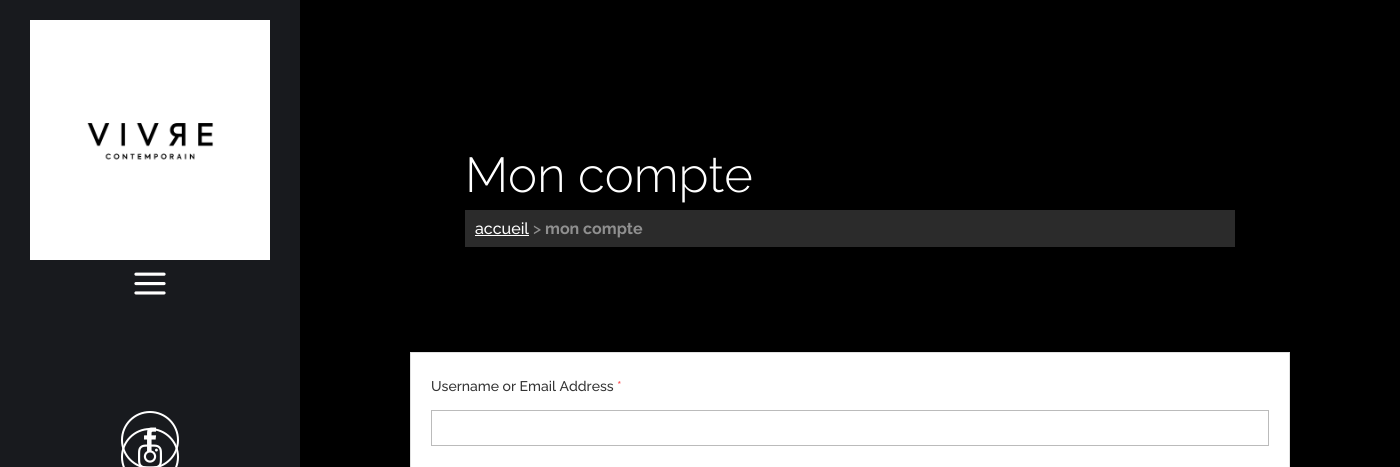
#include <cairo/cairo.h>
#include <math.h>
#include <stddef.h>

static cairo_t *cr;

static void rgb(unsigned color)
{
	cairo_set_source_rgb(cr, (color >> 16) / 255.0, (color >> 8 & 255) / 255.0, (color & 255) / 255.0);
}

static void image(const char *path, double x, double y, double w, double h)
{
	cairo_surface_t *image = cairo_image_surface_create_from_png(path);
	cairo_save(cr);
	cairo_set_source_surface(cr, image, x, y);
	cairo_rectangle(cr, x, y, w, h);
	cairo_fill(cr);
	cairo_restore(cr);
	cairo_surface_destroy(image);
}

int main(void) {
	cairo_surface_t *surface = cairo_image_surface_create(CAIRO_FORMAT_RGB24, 1400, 467);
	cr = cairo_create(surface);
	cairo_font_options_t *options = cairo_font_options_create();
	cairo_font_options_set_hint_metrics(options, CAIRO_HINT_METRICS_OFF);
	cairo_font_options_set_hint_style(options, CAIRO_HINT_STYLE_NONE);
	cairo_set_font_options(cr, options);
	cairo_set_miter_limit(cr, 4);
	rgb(0x000000);
	cairo_paint(cr);
	rgb(0x181a1e);
	cairo_rectangle(cr, 0, 0, 300, 467);
	cairo_fill(cr);
	image("img/1.png", 30, 20, 240, 240);
	image("img/2.png", 134, 272, 32, 23);
	cairo_arc(cr, 150, 440, 28, 0, 2 * M_PI);
	rgb(0xffffff);
	cairo_stroke(cr);
	image("img/3.png", 144, 427, 13, 25);
	cairo_arc(cr, 150, 457, 28, 0, 2 * M_PI);
	cairo_stroke(cr);
	image("img/4.png", 138, 444, 24, 23);
	rgb(0x2b2b2b);
	cairo_rectangle(cr, 465, 210, 770, 37);
	cairo_fill(cr);
	rgb(0xffffff);
	cairo_rectangle(cr, 475, 235, 54, 1);
	cairo_fill(cr);
	cairo_rectangle(cr, 410.5, 352.5, 879, 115);
	cairo_fill_preserve(cr);
	rgb(0xe1e1e1);
	cairo_set_line_width(cr, 1);
	cairo_stroke(cr);
	cairo_rectangle(cr, 431.5, 410.5, 837, 35);
	rgb(0xbbbbbb);
	cairo_stroke(cr);
	cairo_select_font_face(cr, "Raleway Light", CAIRO_FONT_SLANT_NORMAL, CAIRO_FONT_WEIGHT_NORMAL);
	cairo_set_font_size(cr, 49);
	rgb(0xffffff);
	cairo_move_to(cr, 465, 192);
	cairo_show_text(cr, "Mon compte");
	cairo_select_font_face(cr, "Raleway Medium", CAIRO_FONT_SLANT_NORMAL, CAIRO_FONT_WEIGHT_NORMAL);
	cairo_set_font_size(cr, 16);
	cairo_move_to(cr, 475, 234);
	cairo_show_text(cr, "accueil");
	rgb(0x8f8f8f);
	cairo_move_to(cr, 533, 234);
	cairo_show_text(cr, ">");
	cairo_select_font_face(cr, "Raleway", CAIRO_FONT_SLANT_NORMAL, CAIRO_FONT_WEIGHT_BOLD);
	cairo_move_to(cr, 545, 234);
	cairo_show_text(cr, "mon compte");
	cairo_select_font_face(cr, "Raleway Medium", CAIRO_FONT_SLANT_NORMAL, CAIRO_FONT_WEIGHT_NORMAL);
	cairo_set_font_size(cr, 14);
	rgb(0x333333);
	cairo_move_to(cr, 431, 391);
	cairo_show_text(cr, "Username or Email Address");
	rgb(0xff4f55);
	cairo_move_to(cr, 617, 391);
	cairo_show_text(cr, "*");
	cairo_surface_write_to_png(surface, "page.png");
	cairo_font_options_destroy(options);
	cairo_destroy(cr);
	cairo_surface_destroy(surface);
	return 0;
}
